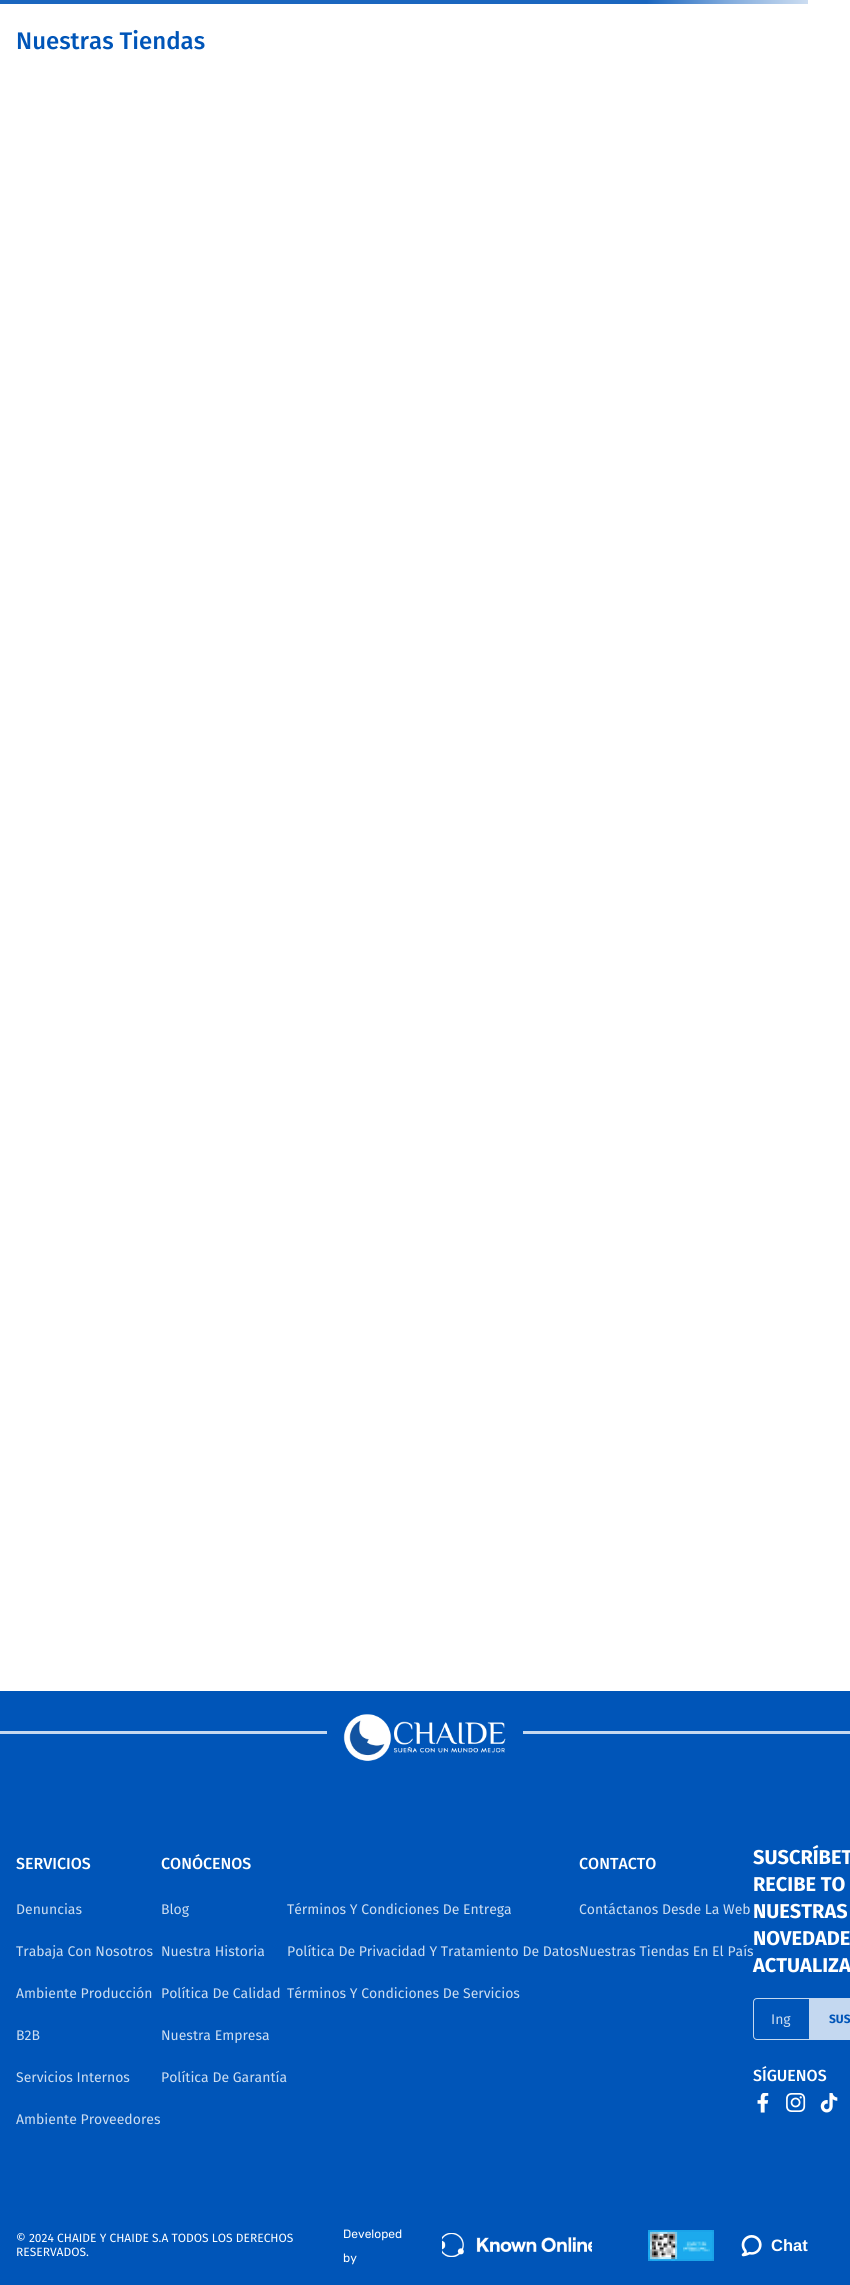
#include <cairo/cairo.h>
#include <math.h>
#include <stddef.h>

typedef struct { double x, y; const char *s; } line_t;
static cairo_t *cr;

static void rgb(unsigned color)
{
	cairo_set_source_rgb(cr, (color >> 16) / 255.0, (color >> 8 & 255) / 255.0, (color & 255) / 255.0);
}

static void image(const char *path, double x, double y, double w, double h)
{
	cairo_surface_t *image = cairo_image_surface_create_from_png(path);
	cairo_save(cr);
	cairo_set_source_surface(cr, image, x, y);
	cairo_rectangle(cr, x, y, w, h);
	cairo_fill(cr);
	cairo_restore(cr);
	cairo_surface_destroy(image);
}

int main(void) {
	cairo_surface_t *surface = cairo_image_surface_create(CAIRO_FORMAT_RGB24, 850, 2285);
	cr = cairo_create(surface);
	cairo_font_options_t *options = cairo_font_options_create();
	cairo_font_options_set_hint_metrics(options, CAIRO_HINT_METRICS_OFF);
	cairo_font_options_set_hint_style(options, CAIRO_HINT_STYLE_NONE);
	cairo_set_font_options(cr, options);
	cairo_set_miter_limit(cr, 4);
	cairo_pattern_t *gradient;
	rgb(0xffffff);
	cairo_paint(cr);
	gradient = cairo_pattern_create_linear(0, 2, 808, 2);
	cairo_pattern_add_color_stop_rgba(gradient, 0.8, 0.102, 0.4, 0.749, 1);
	cairo_pattern_add_color_stop_rgba(gradient, 0.9, 0.502, 0.667, 0.863, 1);
	cairo_pattern_add_color_stop_rgba(gradient, 1, 0.8, 0.867, 0.945, 1);
	cairo_set_source(cr, gradient);
	cairo_pattern_destroy(gradient);
	cairo_rectangle(cr, 0, 0, 808, 4);
	cairo_fill(cr);
	rgb(0x0055b8);
	cairo_rectangle(cr, 0, 1691, 850, 594);
	cairo_fill(cr);
	rgb(0xc4d8f0);
	cairo_rectangle(cr, 0, 1731, 327, 3);
	cairo_fill(cr);
	image("img/1.png", 343, 1714, 163, 47);
	cairo_rectangle(cr, 523, 1731, 327, 3);
	cairo_fill(cr);
	cairo_new_path(cr);
	cairo_move_to(cr, 757, 1998.5);
	cairo_line_to(cr, 809.5, 1998.5);
	cairo_line_to(cr, 809.5, 2039.5);
	cairo_line_to(cr, 757, 2039.5);
	cairo_curve_to(cr, 755, 2039.5, 753.5, 2038, 753.5, 2036);
	cairo_line_to(cr, 753.5, 2002);
	cairo_curve_to(cr, 753.5, 2000, 755, 1998.5, 757, 1998.5);
	cairo_close_path(cr);
	cairo_set_line_width(cr, 1);
	cairo_stroke(cr);
	cairo_rectangle(cr, 810, 1998, 40, 42);
	cairo_fill(cr);
	image("img/2.png", 757, 2093, 12, 20);
	image("img/3.png", 786, 2093, 20, 19);
	image("img/4.png", 820, 2093, 18, 20);
	image("img/5.png", 442, 2233, 150, 24);
	image("img/6.png", 648, 2230, 66, 31);
	image("img/7.png", 741, 2235, 21, 22);
	cairo_select_font_face(cr, "Fira Sans Medium", CAIRO_FONT_SLANT_NORMAL, CAIRO_FONT_WEIGHT_NORMAL);
	cairo_set_font_size(cr, 24);
	rgb(0x0055b8);
	cairo_move_to(cr, 16, 49);
	cairo_show_text(cr, "Nuestras Tiendas");
	cairo_set_font_size(cr, 16);
	rgb(0xffffff);
	cairo_move_to(cr, 16, 1869);
	cairo_show_text(cr, "SERVICIOS");
	cairo_select_font_face(cr, "Fira Sans", CAIRO_FONT_SLANT_NORMAL, CAIRO_FONT_WEIGHT_NORMAL);
	cairo_set_font_size(cr, 14);
	rgb(0xccddf1);
	{
		static const line_t items[] = {
			{16, 1914, "Denuncias"},
			{16, 1956, "Trabaja Con Nosotros"},
			{16, 1998, "Ambiente Producción"},
			{16, 2040, "B2B"},
			{16, 2082, "Servicios Internos"},
			{16, 2124, "Ambiente Proveedores"},
		};
		for (size_t i = 0; i < sizeof items / sizeof *items; i++) {
			cairo_move_to(cr, items[i].x, items[i].y);
			cairo_show_text(cr, items[i].s);
		}
	}
	cairo_select_font_face(cr, "Fira Sans Medium", CAIRO_FONT_SLANT_NORMAL, CAIRO_FONT_WEIGHT_NORMAL);
	cairo_set_font_size(cr, 16);
	rgb(0xffffff);
	cairo_move_to(cr, 161, 1869);
	cairo_show_text(cr, "CONÓCENOS");
	cairo_select_font_face(cr, "Fira Sans", CAIRO_FONT_SLANT_NORMAL, CAIRO_FONT_WEIGHT_NORMAL);
	cairo_set_font_size(cr, 14);
	rgb(0xccddf1);
	{
		static const line_t items[] = {
			{161, 1914, "Blog"},
			{161, 1956, "Nuestra Historia"},
			{161, 1998, "Política De Calidad"},
			{161, 2040, "Nuestra Empresa"},
			{161, 2082, "Política De Garantía"},
		};
		for (size_t i = 0; i < sizeof items / sizeof *items; i++) {
			cairo_move_to(cr, items[i].x, items[i].y);
			cairo_show_text(cr, items[i].s);
		}
	}
	cairo_select_font_face(cr, "Fira Sans Medium", CAIRO_FONT_SLANT_NORMAL, CAIRO_FONT_WEIGHT_NORMAL);
	cairo_set_font_size(cr, 16);
	rgb(0xffffff);
	cairo_move_to(cr, 579, 1869);
	cairo_show_text(cr, "CONTACTO");
	cairo_select_font_face(cr, "Fira Sans", CAIRO_FONT_SLANT_NORMAL, CAIRO_FONT_WEIGHT_NORMAL);
	cairo_set_font_size(cr, 14);
	rgb(0xccddf1);
	cairo_move_to(cr, 579, 1914);
	cairo_show_text(cr, "Contáctanos Desde La Web");
	cairo_select_font_face(cr, "Fira Sans", CAIRO_FONT_SLANT_NORMAL, CAIRO_FONT_WEIGHT_BOLD);
	cairo_set_font_size(cr, 20);
	rgb(0xffffff);
	{
		static const line_t items[] = {
			{753, 1864, "SUSCRÍBET"},
			{753, 1891, "RECIBE TO"},
			{753, 1918, "NUESTRAS"},
			{753, 1945, "NOVEDADE"},
			{753, 1972, "ACTUALIZA"},
		};
		for (size_t i = 0; i < sizeof items / sizeof *items; i++) {
			cairo_move_to(cr, items[i].x, items[i].y);
			cairo_show_text(cr, items[i].s);
		}
	}
	cairo_select_font_face(cr, "Fira Sans", CAIRO_FONT_SLANT_NORMAL, CAIRO_FONT_WEIGHT_NORMAL);
	cairo_set_font_size(cr, 14);
	rgb(0xccddf1);
	cairo_move_to(cr, 771, 2024);
	cairo_show_text(cr, "Ing");
	cairo_select_font_face(cr, "Fira Sans", CAIRO_FONT_SLANT_NORMAL, CAIRO_FONT_WEIGHT_BOLD);
	cairo_set_font_size(cr, 12);
	rgb(0x0055b8);
	cairo_move_to(cr, 829, 2023);
	cairo_show_text(cr, "SUS");
	cairo_select_font_face(cr, "Fira Sans Medium", CAIRO_FONT_SLANT_NORMAL, CAIRO_FONT_WEIGHT_NORMAL);
	cairo_set_font_size(cr, 16);
	rgb(0xffffff);
	cairo_move_to(cr, 753, 2081);
	cairo_show_text(cr, "SÍGUENOS");
	cairo_select_font_face(cr, "Fira Sans", CAIRO_FONT_SLANT_NORMAL, CAIRO_FONT_WEIGHT_NORMAL);
	cairo_set_font_size(cr, 14);
	rgb(0xccddf1);
	{
		static const line_t items[] = {
			{287, 1914, "Términos Y Condiciones De Entrega"},
			{287, 1956, "Política De Privacidad Y Tratamiento De DatosNuestras Tiendas En El País"},
			{287, 1998, "Términos Y Condiciones De Servicios"},
		};
		for (size_t i = 0; i < sizeof items / sizeof *items; i++) {
			cairo_move_to(cr, items[i].x, items[i].y);
			cairo_show_text(cr, items[i].s);
		}
	}
	cairo_set_font_size(cr, 12);
	rgb(0xffffff);
	cairo_move_to(cr, 16, 2242);
	cairo_show_text(cr, "© 2024 CHAIDE Y CHAIDE S.A TODOS LOS DERECHOS");
	cairo_move_to(cr, 16, 2256);
	cairo_show_text(cr, "RESERVADOS.");
	cairo_select_font_face(cr, "Rubik", CAIRO_FONT_SLANT_NORMAL, CAIRO_FONT_WEIGHT_NORMAL);
	cairo_move_to(cr, 343, 2238);
	cairo_show_text(cr, "Developed");
	cairo_move_to(cr, 343, 2262);
	cairo_show_text(cr, "by");
	cairo_select_font_face(cr, "Liberation Sans", CAIRO_FONT_SLANT_NORMAL, CAIRO_FONT_WEIGHT_BOLD);
	cairo_set_font_size(cr, 16.5);
	cairo_move_to(cr, 771, 2251);
	cairo_show_text(cr, "Chat");
	cairo_surface_write_to_png(surface, "page.png");
	cairo_font_options_destroy(options);
	cairo_destroy(cr);
	cairo_surface_destroy(surface);
	return 0;
}
